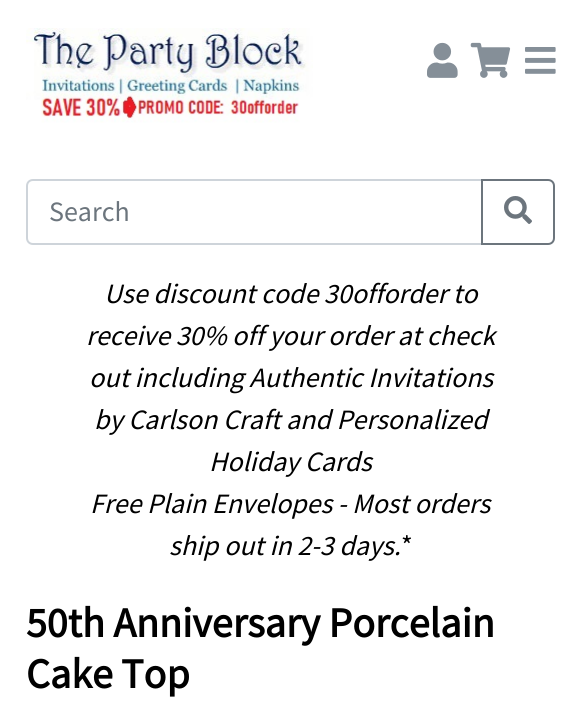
#include <cairo/cairo.h>
#include <math.h>
#include <stddef.h>

typedef struct { double x, y; const char *s; } line_t;
static cairo_t *cr;

static void rgb(unsigned color)
{
	cairo_set_source_rgb(cr, (color >> 16) / 255.0, (color >> 8 & 255) / 255.0, (color & 255) / 255.0);
}

static void image(const char *path, double x, double y, double w, double h)
{
	cairo_surface_t *image = cairo_image_surface_create_from_png(path);
	cairo_save(cr);
	cairo_set_source_surface(cr, image, x, y);
	cairo_rectangle(cr, x, y, w, h);
	cairo_fill(cr);
	cairo_restore(cr);
	cairo_surface_destroy(image);
}

int main(void) {
	cairo_surface_t *surface = cairo_image_surface_create(CAIRO_FORMAT_RGB24, 581, 717);
	cr = cairo_create(surface);
	cairo_font_options_t *options = cairo_font_options_create();
	cairo_font_options_set_hint_metrics(options, CAIRO_HINT_METRICS_OFF);
	cairo_font_options_set_hint_style(options, CAIRO_HINT_STYLE_NONE);
	cairo_set_font_options(cr, options);
	cairo_set_miter_limit(cr, 4);
	rgb(0xffffff);
	cairo_paint(cr);
	image("img/1.png", 26, 28, 287, 95);
	image("img/2.png", 427, 42, 31, 36);
	image("img/3.png", 470, 42, 41, 36);
	image("img/4.png", 525, 47, 31, 27);
	cairo_new_path(cr);
	cairo_move_to(cr, 33, 180);
	cairo_line_to(cr, 482, 180);
	cairo_line_to(cr, 482, 244);
	cairo_line_to(cr, 33, 244);
	cairo_curve_to(cr, 29.5, 244, 27, 241.5, 27, 238);
	cairo_line_to(cr, 27, 186);
	cairo_curve_to(cr, 27, 182.5, 29.5, 180, 33, 180);
	cairo_close_path(cr);
	rgb(0xced4da);
	cairo_stroke(cr);
	cairo_new_path(cr);
	cairo_move_to(cr, 482, 180);
	cairo_line_to(cr, 548, 180);
	cairo_curve_to(cr, 551.5, 180, 554, 182.5, 554, 186);
	cairo_line_to(cr, 554, 238);
	cairo_curve_to(cr, 554, 241.5, 551.5, 244, 548, 244);
	cairo_line_to(cr, 482, 244);
	cairo_close_path(cr);
	rgb(0x6c757d);
	cairo_stroke(cr);
	image("img/5.png", 504, 196, 28, 28);
	cairo_select_font_face(cr, "Source Sans Pro", CAIRO_FONT_SLANT_NORMAL, CAIRO_FONT_WEIGHT_NORMAL);
	cairo_set_font_size(cr, 28);
	cairo_move_to(cr, 49, 221);
	cairo_show_text(cr, "Search");
	cairo_select_font_face(cr, "Source Sans Pro", CAIRO_FONT_SLANT_ITALIC, CAIRO_FONT_WEIGHT_NORMAL);
	rgb(0x000000);
	{
		static const line_t items[] = {
			{104, 303, "Use discount code 30offorder to"},
			{86, 345, "receive 30% off your order at check"},
			{89, 387, "out including Authentic Invitations"},
			{94, 429, "by Carlson Craft and Personalized"},
			{209, 471, "Holiday Cards"},
			{90, 513, "Free Plain Envelopes - Most orders"},
			{169, 555, "ship out in 2-3 days."},
		};
		for (size_t i = 0; i < sizeof items / sizeof *items; i++) {
			cairo_move_to(cr, items[i].x, items[i].y);
			cairo_show_text(cr, items[i].s);
		}
	}
	cairo_select_font_face(cr, "Source Sans Pro", CAIRO_FONT_SLANT_NORMAL, CAIRO_FONT_WEIGHT_NORMAL);
	cairo_move_to(cr, 401, 555);
	cairo_show_text(cr, "*");
	cairo_select_font_face(cr, "Source Sans Pro", CAIRO_FONT_SLANT_NORMAL, CAIRO_FONT_WEIGHT_BOLD);
	cairo_set_font_size(cr, 42);
	cairo_move_to(cr, 26, 637);
	cairo_show_text(cr, "50th Anniversary Porcelain");
	cairo_move_to(cr, 26, 688);
	cairo_show_text(cr, "Cake Top");
	cairo_surface_write_to_png(surface, "page.png");
	cairo_font_options_destroy(options);
	cairo_destroy(cr);
	cairo_surface_destroy(surface);
	return 0;
}
